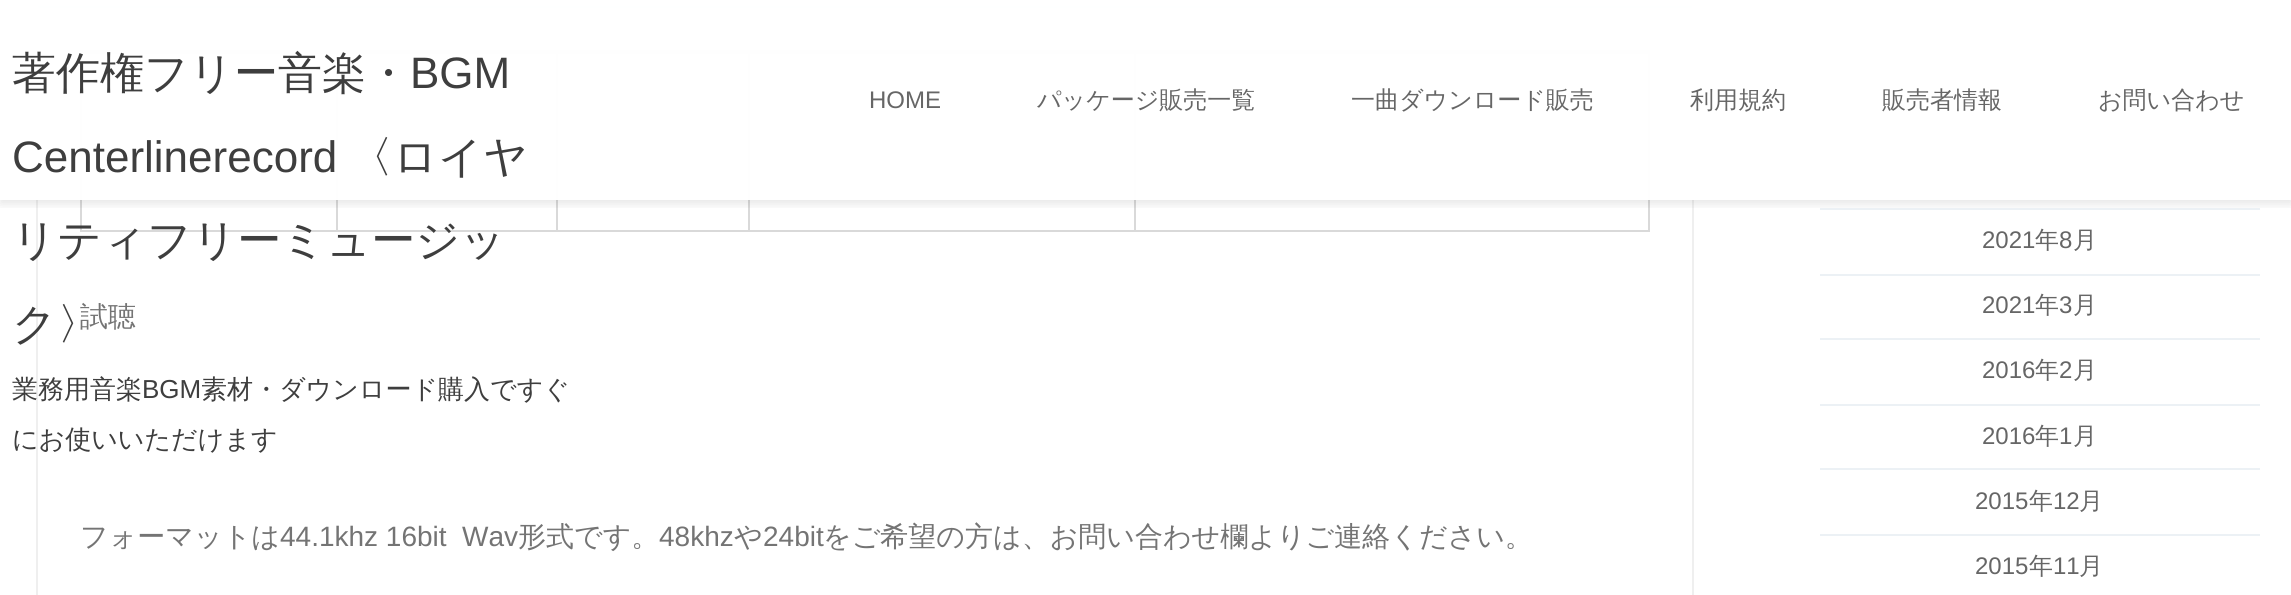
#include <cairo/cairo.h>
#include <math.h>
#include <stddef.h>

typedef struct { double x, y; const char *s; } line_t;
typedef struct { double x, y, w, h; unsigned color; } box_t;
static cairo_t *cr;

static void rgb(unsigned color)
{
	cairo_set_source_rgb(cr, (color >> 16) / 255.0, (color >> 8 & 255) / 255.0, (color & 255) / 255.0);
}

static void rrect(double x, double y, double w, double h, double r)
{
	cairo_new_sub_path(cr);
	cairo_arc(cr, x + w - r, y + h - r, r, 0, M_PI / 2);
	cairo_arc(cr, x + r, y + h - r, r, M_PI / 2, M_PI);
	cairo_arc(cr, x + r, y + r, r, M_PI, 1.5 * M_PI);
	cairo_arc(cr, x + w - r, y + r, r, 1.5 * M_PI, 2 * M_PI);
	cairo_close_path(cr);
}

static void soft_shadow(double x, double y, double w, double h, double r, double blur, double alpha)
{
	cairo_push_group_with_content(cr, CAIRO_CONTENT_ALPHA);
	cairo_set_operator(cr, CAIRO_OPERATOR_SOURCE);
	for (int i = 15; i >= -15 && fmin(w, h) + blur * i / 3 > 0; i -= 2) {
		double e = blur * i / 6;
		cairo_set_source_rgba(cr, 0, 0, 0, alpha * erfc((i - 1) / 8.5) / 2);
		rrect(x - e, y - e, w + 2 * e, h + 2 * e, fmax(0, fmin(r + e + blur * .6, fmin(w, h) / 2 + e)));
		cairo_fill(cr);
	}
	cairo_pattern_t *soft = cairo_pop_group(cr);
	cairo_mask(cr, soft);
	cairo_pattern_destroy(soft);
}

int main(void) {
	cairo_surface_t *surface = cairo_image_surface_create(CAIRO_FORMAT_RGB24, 2291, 595);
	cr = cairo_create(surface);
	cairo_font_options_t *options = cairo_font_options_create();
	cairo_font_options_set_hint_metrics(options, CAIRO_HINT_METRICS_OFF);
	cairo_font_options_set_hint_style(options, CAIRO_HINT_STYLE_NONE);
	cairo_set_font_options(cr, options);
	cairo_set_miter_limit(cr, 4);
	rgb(0xffffff);
	cairo_paint(cr);
	cairo_rectangle(cr, 37, -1, 1656, 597);
	rgb(0xefefef);
	cairo_stroke(cr);
	{
		static const box_t items[] = {
			{38, 6, 1654, 2, 0xecf1f5},
			{80, 50, 1570, 2, 0xd9d9d9},
			{1648, 50, 2, 182, 0xd9d9d9},
			{80, 52, 1568, 2, 0xd9d9d9},
			{80, 52, 2, 178, 0xd9d9d9},
			{336, 52, 2, 178, 0xd9d9d9},
			{556, 52, 2, 178, 0xd9d9d9},
			{748, 52, 2, 178, 0xd9d9d9},
			{1134, 52, 2, 178, 0xd9d9d9},
			{1820, 208, 440, 2, 0xecf1f5},
		};
		for (size_t i = 0; i < sizeof items / sizeof *items; i++) {
			rgb(items[i].color);
			cairo_rectangle(cr, items[i].x, items[i].y, items[i].w, items[i].h);
			cairo_fill(cr);
		}
	}
	cairo_save(cr);
	cairo_rectangle(cr, 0, 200, 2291, 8);
	cairo_clip(cr);
	rgb(0x000000);
	soft_shadow(0, 4, 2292, 200, 0, 5, 0.1);
	cairo_restore(cr);
	cairo_set_source_rgba(cr, 1, 1, 1, 0.97);
	cairo_rectangle(cr, 36, 0, 1658, 200);
	cairo_fill(cr);
	rgb(0xd9d9d9);
	cairo_rectangle(cr, 80, 230, 1570, 2);
	cairo_fill(cr);
	rgb(0xecf1f5);
	cairo_rectangle(cr, 1820, 274, 440, 2);
	cairo_fill(cr);
	cairo_rectangle(cr, 1820, 338, 440, 2);
	cairo_fill(cr);
	cairo_rectangle(cr, 1820, 404, 440, 2);
	cairo_fill(cr);
	cairo_rectangle(cr, 1820, 468, 440, 2);
	cairo_fill(cr);
	cairo_rectangle(cr, 1820, 534, 440, 2);
	cairo_fill(cr);
	cairo_select_font_face(cr, "WenQuanYi Zen Hei Medium", CAIRO_FONT_SLANT_NORMAL, CAIRO_FONT_WEIGHT_NORMAL);
	cairo_set_font_size(cr, 44);
	rgb(0x3e3e3e);
	cairo_move_to(cr, 12, 88);
	cairo_show_text(cr, "著作権フリー音楽・");
	cairo_select_font_face(cr, "Liberation Sans", CAIRO_FONT_SLANT_NORMAL, CAIRO_FONT_WEIGHT_NORMAL);
	cairo_move_to(cr, 410, 88);
	cairo_show_text(cr, "BGM");
	cairo_move_to(cr, 12, 172);
	cairo_show_text(cr, "Centerlinerecord");
	cairo_select_font_face(cr, "WenQuanYi Zen Hei Medium", CAIRO_FONT_SLANT_NORMAL, CAIRO_FONT_WEIGHT_NORMAL);
	{
		static const line_t items[] = {
			{349, 172, "〈ロイヤ"},
			{12, 255, "リティフリーミュージッ"},
			{12, 339, "ク〉"},
		};
		for (size_t i = 0; i < sizeof items / sizeof *items; i++) {
			cairo_move_to(cr, items[i].x, items[i].y);
			cairo_show_text(cr, items[i].s);
		}
	}
	cairo_set_font_size(cr, 26);
	cairo_move_to(cr, 12, 398);
	cairo_show_text(cr, "業務用音楽");
	cairo_select_font_face(cr, "Liberation Sans", CAIRO_FONT_SLANT_NORMAL, CAIRO_FONT_WEIGHT_NORMAL);
	cairo_move_to(cr, 142, 398);
	cairo_show_text(cr, "BGM");
	cairo_select_font_face(cr, "WenQuanYi Zen Hei Medium", CAIRO_FONT_SLANT_NORMAL, CAIRO_FONT_WEIGHT_NORMAL);
	cairo_move_to(cr, 201, 398);
	cairo_show_text(cr, "素材・ダウンロード購入ですぐ");
	cairo_move_to(cr, 12, 448);
	cairo_show_text(cr, "にお使いいただけます");
	cairo_select_font_face(cr, "Liberation Sans", CAIRO_FONT_SLANT_NORMAL, CAIRO_FONT_WEIGHT_NORMAL);
	cairo_set_font_size(cr, 24);
	rgb(0x666666);
	cairo_move_to(cr, 869, 108);
	cairo_show_text(cr, "HOME");
	cairo_select_font_face(cr, "WenQuanYi Zen Hei Medium", CAIRO_FONT_SLANT_NORMAL, CAIRO_FONT_WEIGHT_NORMAL);
	{
		static const line_t items[] = {
			{1037, 108, "パッケージ販売一覧"},
			{1351, 108, "一曲ダウンロード販売"},
			{1690, 108, "利用規約"},
			{1882, 108, "販売者情報"},
			{2098, 108, "お問い合わせ"},
		};
		for (size_t i = 0; i < sizeof items / sizeof *items; i++) {
			cairo_move_to(cr, items[i].x, items[i].y);
			cairo_show_text(cr, items[i].s);
		}
	}
	cairo_set_font_size(cr, 28);
	rgb(0x747474);
	cairo_move_to(cr, 80, 326);
	cairo_show_text(cr, "試聴");
	cairo_move_to(cr, 80, 546);
	cairo_show_text(cr, "フォーマットは");
	cairo_select_font_face(cr, "Liberation Sans", CAIRO_FONT_SLANT_NORMAL, CAIRO_FONT_WEIGHT_NORMAL);
	cairo_move_to(cr, 280, 546);
	cairo_show_text(cr, "44.1khz 16bit  Wav");
	cairo_select_font_face(cr, "WenQuanYi Zen Hei Medium", CAIRO_FONT_SLANT_NORMAL, CAIRO_FONT_WEIGHT_NORMAL);
	cairo_move_to(cr, 518, 546);
	cairo_show_text(cr, "形式です。");
	cairo_select_font_face(cr, "Liberation Sans", CAIRO_FONT_SLANT_NORMAL, CAIRO_FONT_WEIGHT_NORMAL);
	cairo_move_to(cr, 659, 546);
	cairo_show_text(cr, "48khz");
	cairo_select_font_face(cr, "WenQuanYi Zen Hei Medium", CAIRO_FONT_SLANT_NORMAL, CAIRO_FONT_WEIGHT_NORMAL);
	cairo_move_to(cr, 734, 546);
	cairo_show_text(cr, "や");
	cairo_select_font_face(cr, "Liberation Sans", CAIRO_FONT_SLANT_NORMAL, CAIRO_FONT_WEIGHT_NORMAL);
	cairo_move_to(cr, 763, 546);
	cairo_show_text(cr, "24bit");
	cairo_select_font_face(cr, "WenQuanYi Zen Hei Medium", CAIRO_FONT_SLANT_NORMAL, CAIRO_FONT_WEIGHT_NORMAL);
	cairo_move_to(cr, 823, 546);
	cairo_show_text(cr, "をご希望の方は、お問い合わせ欄よりご連絡ください。");
	cairo_select_font_face(cr, "Liberation Sans", CAIRO_FONT_SLANT_NORMAL, CAIRO_FONT_WEIGHT_NORMAL);
	cairo_set_font_size(cr, 24);
	rgb(0x666666);
	cairo_move_to(cr, 1982, 248);
	cairo_show_text(cr, "2021");
	cairo_select_font_face(cr, "WenQuanYi Zen Hei Medium", CAIRO_FONT_SLANT_NORMAL, CAIRO_FONT_WEIGHT_NORMAL);
	cairo_move_to(cr, 2035, 248);
	cairo_show_text(cr, "年");
	cairo_select_font_face(cr, "Liberation Sans", CAIRO_FONT_SLANT_NORMAL, CAIRO_FONT_WEIGHT_NORMAL);
	cairo_move_to(cr, 2059, 248);
	cairo_show_text(cr, "8");
	cairo_select_font_face(cr, "WenQuanYi Zen Hei Medium", CAIRO_FONT_SLANT_NORMAL, CAIRO_FONT_WEIGHT_NORMAL);
	cairo_move_to(cr, 2073, 248);
	cairo_show_text(cr, "月");
	cairo_select_font_face(cr, "Liberation Sans", CAIRO_FONT_SLANT_NORMAL, CAIRO_FONT_WEIGHT_NORMAL);
	cairo_move_to(cr, 1982, 313);
	cairo_show_text(cr, "2021");
	cairo_select_font_face(cr, "WenQuanYi Zen Hei Medium", CAIRO_FONT_SLANT_NORMAL, CAIRO_FONT_WEIGHT_NORMAL);
	cairo_move_to(cr, 2035, 313);
	cairo_show_text(cr, "年");
	cairo_select_font_face(cr, "Liberation Sans", CAIRO_FONT_SLANT_NORMAL, CAIRO_FONT_WEIGHT_NORMAL);
	cairo_move_to(cr, 2059, 313);
	cairo_show_text(cr, "3");
	cairo_select_font_face(cr, "WenQuanYi Zen Hei Medium", CAIRO_FONT_SLANT_NORMAL, CAIRO_FONT_WEIGHT_NORMAL);
	cairo_move_to(cr, 2073, 313);
	cairo_show_text(cr, "月");
	cairo_select_font_face(cr, "Liberation Sans", CAIRO_FONT_SLANT_NORMAL, CAIRO_FONT_WEIGHT_NORMAL);
	cairo_move_to(cr, 1982, 378);
	cairo_show_text(cr, "2016");
	cairo_select_font_face(cr, "WenQuanYi Zen Hei Medium", CAIRO_FONT_SLANT_NORMAL, CAIRO_FONT_WEIGHT_NORMAL);
	cairo_move_to(cr, 2035, 378);
	cairo_show_text(cr, "年");
	cairo_select_font_face(cr, "Liberation Sans", CAIRO_FONT_SLANT_NORMAL, CAIRO_FONT_WEIGHT_NORMAL);
	cairo_move_to(cr, 2059, 378);
	cairo_show_text(cr, "2");
	cairo_select_font_face(cr, "WenQuanYi Zen Hei Medium", CAIRO_FONT_SLANT_NORMAL, CAIRO_FONT_WEIGHT_NORMAL);
	cairo_move_to(cr, 2073, 378);
	cairo_show_text(cr, "月");
	cairo_select_font_face(cr, "Liberation Sans", CAIRO_FONT_SLANT_NORMAL, CAIRO_FONT_WEIGHT_NORMAL);
	cairo_move_to(cr, 1982, 444);
	cairo_show_text(cr, "2016");
	cairo_select_font_face(cr, "WenQuanYi Zen Hei Medium", CAIRO_FONT_SLANT_NORMAL, CAIRO_FONT_WEIGHT_NORMAL);
	cairo_move_to(cr, 2035, 444);
	cairo_show_text(cr, "年");
	cairo_select_font_face(cr, "Liberation Sans", CAIRO_FONT_SLANT_NORMAL, CAIRO_FONT_WEIGHT_NORMAL);
	cairo_move_to(cr, 2059, 444);
	cairo_show_text(cr, "1");
	cairo_select_font_face(cr, "WenQuanYi Zen Hei Medium", CAIRO_FONT_SLANT_NORMAL, CAIRO_FONT_WEIGHT_NORMAL);
	cairo_move_to(cr, 2073, 444);
	cairo_show_text(cr, "月");
	cairo_select_font_face(cr, "Liberation Sans", CAIRO_FONT_SLANT_NORMAL, CAIRO_FONT_WEIGHT_NORMAL);
	cairo_move_to(cr, 1975, 509);
	cairo_show_text(cr, "2015");
	cairo_select_font_face(cr, "WenQuanYi Zen Hei Medium", CAIRO_FONT_SLANT_NORMAL, CAIRO_FONT_WEIGHT_NORMAL);
	cairo_move_to(cr, 2029, 509);
	cairo_show_text(cr, "年");
	cairo_select_font_face(cr, "Liberation Sans", CAIRO_FONT_SLANT_NORMAL, CAIRO_FONT_WEIGHT_NORMAL);
	cairo_move_to(cr, 2053, 509);
	cairo_show_text(cr, "12");
	cairo_select_font_face(cr, "WenQuanYi Zen Hei Medium", CAIRO_FONT_SLANT_NORMAL, CAIRO_FONT_WEIGHT_NORMAL);
	cairo_move_to(cr, 2079, 509);
	cairo_show_text(cr, "月");
	cairo_select_font_face(cr, "Liberation Sans", CAIRO_FONT_SLANT_NORMAL, CAIRO_FONT_WEIGHT_NORMAL);
	cairo_move_to(cr, 1975, 574);
	cairo_show_text(cr, "2015");
	cairo_select_font_face(cr, "WenQuanYi Zen Hei Medium", CAIRO_FONT_SLANT_NORMAL, CAIRO_FONT_WEIGHT_NORMAL);
	cairo_move_to(cr, 2029, 574);
	cairo_show_text(cr, "年");
	cairo_select_font_face(cr, "Liberation Sans", CAIRO_FONT_SLANT_NORMAL, CAIRO_FONT_WEIGHT_NORMAL);
	cairo_move_to(cr, 2053, 574);
	cairo_show_text(cr, "11");
	cairo_select_font_face(cr, "WenQuanYi Zen Hei Medium", CAIRO_FONT_SLANT_NORMAL, CAIRO_FONT_WEIGHT_NORMAL);
	cairo_move_to(cr, 2079, 574);
	cairo_show_text(cr, "月");
	cairo_surface_write_to_png(surface, "page.png");
	cairo_font_options_destroy(options);
	cairo_destroy(cr);
	cairo_surface_destroy(surface);
	return 0;
}
